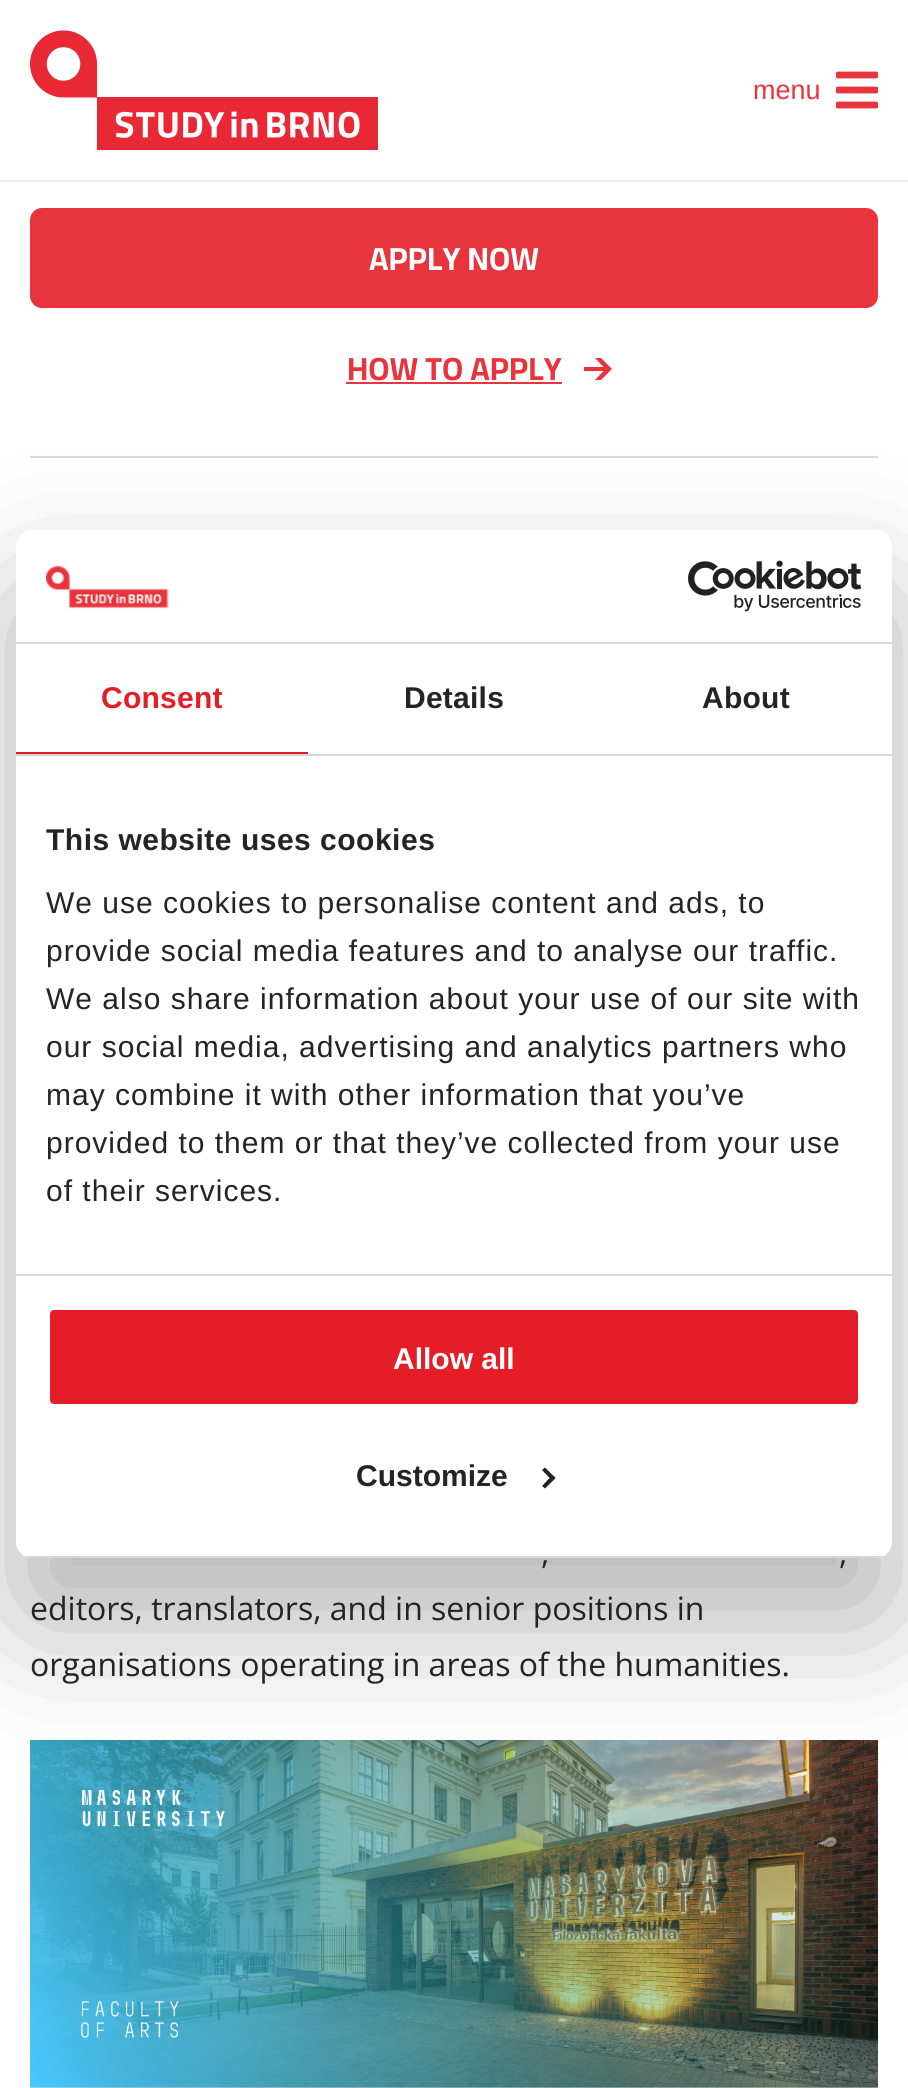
#include <cairo/cairo.h>
#include <math.h>
#include <stddef.h>

typedef struct { double x, y; const char *s; } line_t;
typedef struct { double x, y, w, h; unsigned color; } box_t;
static cairo_t *cr;

static void rgb(unsigned color)
{
	cairo_set_source_rgb(cr, (color >> 16) / 255.0, (color >> 8 & 255) / 255.0, (color & 255) / 255.0);
}

static void tracked(double x, double y, const char *s, double letter, double word)
{
	cairo_move_to(cr, x, y);
	while (*s) {
		char ch[5] = {0};
		int n = 0;
		do ch[n++] = *s++; while ((*s & 0xC0) == 0x80);
		cairo_show_text(cr, ch);
		cairo_rel_move_to(cr, letter + word * (*ch == ' '), 0);
	}
}

static void rrect(double x, double y, double w, double h, double r)
{
	cairo_new_sub_path(cr);
	cairo_arc(cr, x + w - r, y + h - r, r, 0, M_PI / 2);
	cairo_arc(cr, x + r, y + h - r, r, M_PI / 2, M_PI);
	cairo_arc(cr, x + r, y + r, r, M_PI, 1.5 * M_PI);
	cairo_arc(cr, x + w - r, y + r, r, 1.5 * M_PI, 2 * M_PI);
	cairo_close_path(cr);
}

static void soft_shadow(double x, double y, double w, double h, double r, double blur, double alpha)
{
	cairo_push_group_with_content(cr, CAIRO_CONTENT_ALPHA);
	cairo_set_operator(cr, CAIRO_OPERATOR_SOURCE);
	for (int i = 15; i >= -15 && fmin(w, h) + blur * i / 3 > 0; i -= 2) {
		double e = blur * i / 6;
		cairo_set_source_rgba(cr, 0, 0, 0, alpha * erfc((i - 1) / 8.5) / 2);
		rrect(x - e, y - e, w + 2 * e, h + 2 * e, fmax(0, fmin(r + e + blur * .6, fmin(w, h) / 2 + e)));
		cairo_fill(cr);
	}
	cairo_pattern_t *soft = cairo_pop_group(cr);
	cairo_mask(cr, soft);
	cairo_pattern_destroy(soft);
}

static void image(const char *path, double x, double y, double w, double h)
{
	cairo_surface_t *image = cairo_image_surface_create_from_png(path);
	cairo_save(cr);
	cairo_set_source_surface(cr, image, x, y);
	cairo_rectangle(cr, x, y, w, h);
	cairo_fill(cr);
	cairo_restore(cr);
	cairo_surface_destroy(image);
}

int main(void) {
	cairo_surface_t *surface = cairo_image_surface_create(CAIRO_FORMAT_RGB24, 908, 2088);
	cr = cairo_create(surface);
	cairo_font_options_t *options = cairo_font_options_create();
	cairo_font_options_set_hint_metrics(options, CAIRO_HINT_METRICS_OFF);
	cairo_font_options_set_hint_style(options, CAIRO_HINT_STYLE_NONE);
	cairo_set_font_options(cr, options);
	cairo_set_miter_limit(cr, 4);
	rgb(0xffffff);
	cairo_paint(cr);
	rgb(0xeeeeee);
	cairo_rectangle(cr, 0, 180, 908, 2);
	cairo_fill(cr);
	image("img/1.png", 30, 30, 348, 120);
	image("img/2.png", 836, 71, 42, 38);
	rgb(0xd9d9d9);
	cairo_rectangle(cr, 30, 456, 848, 2);
	cairo_fill(cr);
	rgb(0xe8343c);
	rrect(30, 208, 848, 100, 12);
	cairo_fill(cr);
	cairo_rectangle(cr, 346, 382, 216, 2);
	cairo_fill(cr);
	cairo_new_path(cr);
	cairo_move_to(cr, 595, 358);
	cairo_line_to(cr, 603.5, 367);
	cairo_line_to(cr, 584, 367);
	cairo_line_to(cr, 584, 371);
	cairo_line_to(cr, 603.5, 371);
	cairo_line_to(cr, 595, 380);
	cairo_line_to(cr, 601, 380);
	cairo_line_to(cr, 612, 369);
	cairo_line_to(cr, 601, 358);
	cairo_close_path(cr);
	cairo_fill(cr);
	image("img/3.png", 30, 1740, 848, 348);
	rgb(0x000000);
	soft_shadow(16, 594, 876, 1028, 16, 68, 0.3);
	rgb(0xffffff);
	rrect(16, 530, 876, 1028, 16);
	cairo_fill(cr);
	rgb(0xd6d6d6);
	cairo_rectangle(cr, 16, 642, 876, 2);
	cairo_fill(cr);
	image("img/4.png", 46, 565, 123, 44);
	image("img/5.png", 688, 560, 174, 52);
	{
		static const box_t items[] = {
			{16, 754, 876, 2, 0xd6d6d6},
			{16, 752, 292, 2, 0xe51d26},
			{16, 1274, 876, 2, 0xd6d6d6},
		};
		for (size_t i = 0; i < sizeof items / sizeof *items; i++) {
			rgb(items[i].color);
			cairo_rectangle(cr, items[i].x, items[i].y, items[i].w, items[i].h);
			cairo_fill(cr);
		}
	}
	cairo_save(cr);
	rrect(16, 530, 876, 1028, 16);
	cairo_clip(cr);
	cairo_rectangle(cr, 16, 1556, 876, 2);
	cairo_fill(cr);
	cairo_restore(cr);
	rgb(0xe51d26);
	rrect(48, 1308, 812, 98, 6);
	cairo_fill_preserve(cr);
	rgb(0xffffff);
	cairo_set_line_width(cr, 4);
	cairo_stroke(cr);
	rgb(0x212121);
	cairo_new_path(cr);
	cairo_move_to(cr, 545, 1467.5);
	cairo_line_to(cr, 555.5, 1478);
	cairo_line_to(cr, 552.5, 1481);
	cairo_line_to(cr, 542, 1470);
	cairo_close_path(cr);
	cairo_fill(cr);
	cairo_new_path(cr);
	cairo_move_to(cr, 552.5, 1475);
	cairo_line_to(cr, 555.5, 1478);
	cairo_line_to(cr, 545, 1488.5);
	cairo_line_to(cr, 542, 1486);
	cairo_close_path(cr);
	cairo_fill(cr);
	cairo_select_font_face(cr, "Liberation Sans", CAIRO_FONT_SLANT_NORMAL, CAIRO_FONT_WEIGHT_NORMAL);
	cairo_set_font_size(cr, 27);
	rgb(0xe8343c);
	cairo_move_to(cr, 753, 99);
	cairo_show_text(cr, "menu");
	cairo_select_font_face(cr, "Cairo", CAIRO_FONT_SLANT_NORMAL, CAIRO_FONT_WEIGHT_BOLD);
	cairo_set_font_size(cr, 32);
	rgb(0xffffff);
	cairo_move_to(cr, 369, 270);
	cairo_show_text(cr, "APPLY NOW");
	rgb(0xe8343c);
	cairo_move_to(cr, 347, 380);
	cairo_show_text(cr, "HOW TO APPLY");
	cairo_select_font_face(cr, "Open Sans", CAIRO_FONT_SLANT_NORMAL, CAIRO_FONT_WEIGHT_NORMAL);
	rgb(0x242424);
	{
		static const line_t items[] = {
			{541, 1564, ","},
			{839, 1564, ","},
			{30, 1620, "editors, translators, and in senior positions in"},
			{30, 1676, "organisations operating in areas of the humanities."},
		};
		for (size_t i = 0; i < sizeof items / sizeof *items; i++) {
			cairo_move_to(cr, items[i].x, items[i].y);
			cairo_show_text(cr, items[i].s);
		}
	}
	cairo_select_font_face(cr, "Liberation Sans", CAIRO_FONT_SLANT_NORMAL, CAIRO_FONT_WEIGHT_BOLD);
	cairo_set_font_size(cr, 30);
	rgb(0xe51d26);
	tracked(101, 708, "Consent", 0.25, 0);
	rgb(0x242424);
	tracked(404, 708, "Details", 0.25, 0);
	tracked(702, 708, "About", 0.25, 0);
	tracked(46, 850, "This website uses cookies", 0.5, 0);
	cairo_select_font_face(cr, "Liberation Sans", CAIRO_FONT_SLANT_NORMAL, CAIRO_FONT_WEIGHT_NORMAL);
	{
		static const line_t items[] = {
			{46, 913, "We use cookies to personalise content and ads, to"},
			{46, 961, "provide social media features and to analyse our traffic."},
			{46, 1009, "We also share information about your use of our site with"},
			{46, 1057, "our social media, advertising and analytics partners who"},
			{46, 1105, "may combine it with other information that you’ve"},
			{46, 1153, "provided to them or that they’ve collected from your use"},
			{46, 1201, "of their services."},
		};
		for (size_t i = 0; i < sizeof items / sizeof *items; i++) {
			tracked(items[i].x, items[i].y, items[i].s, 1, 0);
		}
	}
	cairo_select_font_face(cr, "Liberation Sans", CAIRO_FONT_SLANT_NORMAL, CAIRO_FONT_WEIGHT_BOLD);
	rgb(0xffffff);
	cairo_move_to(cr, 393, 1369);
	cairo_show_text(cr, "Allow all");
	rgb(0x242424);
	cairo_move_to(cr, 356, 1486);
	cairo_show_text(cr, "Customize");
	cairo_surface_write_to_png(surface, "page.png");
	cairo_font_options_destroy(options);
	cairo_destroy(cr);
	cairo_surface_destroy(surface);
	return 0;
}
